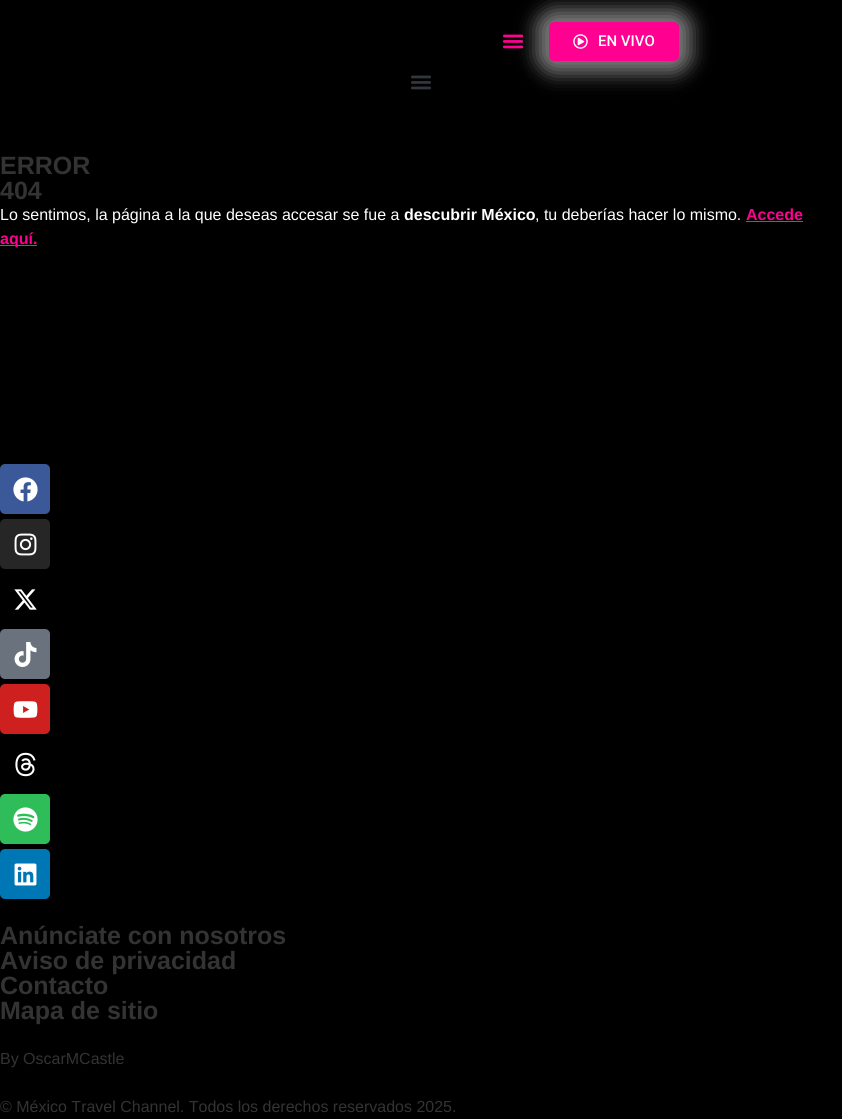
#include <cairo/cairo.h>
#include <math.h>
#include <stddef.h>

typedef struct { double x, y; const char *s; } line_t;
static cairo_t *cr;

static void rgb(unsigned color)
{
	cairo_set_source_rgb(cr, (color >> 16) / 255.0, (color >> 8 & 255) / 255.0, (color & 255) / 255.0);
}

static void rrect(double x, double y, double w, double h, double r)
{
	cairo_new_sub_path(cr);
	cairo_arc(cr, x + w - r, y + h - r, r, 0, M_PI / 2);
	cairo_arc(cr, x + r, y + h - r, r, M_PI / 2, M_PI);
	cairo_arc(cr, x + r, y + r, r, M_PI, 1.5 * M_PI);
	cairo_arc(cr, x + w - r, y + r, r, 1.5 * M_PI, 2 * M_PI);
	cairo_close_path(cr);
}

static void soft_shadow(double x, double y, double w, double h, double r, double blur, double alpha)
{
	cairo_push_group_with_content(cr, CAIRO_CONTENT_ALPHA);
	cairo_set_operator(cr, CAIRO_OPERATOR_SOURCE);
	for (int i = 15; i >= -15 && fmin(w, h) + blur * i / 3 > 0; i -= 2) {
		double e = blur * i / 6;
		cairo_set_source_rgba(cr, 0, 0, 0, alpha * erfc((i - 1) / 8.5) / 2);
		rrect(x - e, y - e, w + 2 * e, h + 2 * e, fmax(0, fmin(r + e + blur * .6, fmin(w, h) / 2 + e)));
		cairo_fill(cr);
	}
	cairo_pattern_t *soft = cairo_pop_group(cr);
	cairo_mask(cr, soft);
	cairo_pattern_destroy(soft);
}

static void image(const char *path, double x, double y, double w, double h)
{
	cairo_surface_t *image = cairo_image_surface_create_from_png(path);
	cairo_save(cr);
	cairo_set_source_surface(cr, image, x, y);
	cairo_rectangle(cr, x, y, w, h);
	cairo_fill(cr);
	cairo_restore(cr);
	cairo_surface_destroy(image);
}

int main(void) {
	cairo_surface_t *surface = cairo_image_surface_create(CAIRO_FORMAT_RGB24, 842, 1119);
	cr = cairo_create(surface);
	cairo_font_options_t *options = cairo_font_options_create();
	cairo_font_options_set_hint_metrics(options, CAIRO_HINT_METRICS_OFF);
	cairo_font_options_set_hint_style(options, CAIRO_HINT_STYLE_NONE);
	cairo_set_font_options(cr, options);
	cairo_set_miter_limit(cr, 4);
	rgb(0x000000);
	cairo_paint(cr);
	image("img/1.png", 502, 34, 22, 15);
	rgb(0xffffff);
	soft_shadow(537, 10, 154, 63, 17, 10, 0.5);
	rgb(0xff0090);
	rrect(549, 22, 130, 39, 5);
	cairo_fill(cr);
	image("img/2.png", 573, 34, 15, 15);
	image("img/3.png", 411, 75, 20, 15);
	rgb(0xcc3366);
	cairo_rectangle(cr, 746, 221, 57, 1);
	cairo_fill(cr);
	cairo_rectangle(cr, 0, 245, 37, 1);
	cairo_fill(cr);
	rgb(0x3b5998);
	rrect(0, 464, 50, 50, 5);
	cairo_fill(cr);
	image("img/4.png", 13, 477, 25, 25);
	rgb(0x262626);
	rrect(0, 519, 50, 50, 5);
	cairo_fill(cr);
	image("img/5.png", 14, 533, 23, 23);
	image("img/6.png", 14, 589, 23, 21);
	rgb(0x69727d);
	rrect(0, 629, 50, 50, 5);
	cairo_fill(cr);
	image("img/7.png", 14, 642, 23, 25);
	rgb(0xcd201f);
	rrect(0, 684, 50, 50, 5);
	cairo_fill(cr);
	image("img/8.png", 13, 701, 25, 17);
	image("img/9.png", 15, 752, 21, 25);
	rgb(0x2ebd59);
	rrect(0, 794, 50, 50, 5);
	cairo_fill(cr);
	image("img/10.png", 13, 807, 25, 25);
	rgb(0x0077b5);
	rrect(0, 849, 50, 50, 5);
	cairo_fill(cr);
	image("img/11.png", 14, 863, 23, 23);
	cairo_select_font_face(cr, "Roboto Medium", CAIRO_FONT_SLANT_NORMAL, CAIRO_FONT_WEIGHT_NORMAL);
	cairo_set_font_size(cr, 15);
	rgb(0xffffff);
	cairo_move_to(cr, 598, 46);
	cairo_show_text(cr, "EN VIVO");
	cairo_select_font_face(cr, "Liberation Sans", CAIRO_FONT_SLANT_NORMAL, CAIRO_FONT_WEIGHT_BOLD);
	cairo_set_font_size(cr, 25);
	rgb(0x333333);
	cairo_move_to(cr, 0, 174);
	cairo_show_text(cr, "ERROR");
	cairo_move_to(cr, 0, 199);
	cairo_show_text(cr, "404");
	cairo_select_font_face(cr, "Liberation Sans", CAIRO_FONT_SLANT_NORMAL, CAIRO_FONT_WEIGHT_NORMAL);
	cairo_set_font_size(cr, 16);
	rgb(0xffffff);
	cairo_move_to(cr, 0, 220);
	cairo_show_text(cr, "Lo sentimos, la página a la que deseas accesar se fue a");
	cairo_select_font_face(cr, "Liberation Sans", CAIRO_FONT_SLANT_NORMAL, CAIRO_FONT_WEIGHT_BOLD);
	cairo_move_to(cr, 404, 220);
	cairo_show_text(cr, "descubrir México");
	cairo_select_font_face(cr, "Liberation Sans", CAIRO_FONT_SLANT_NORMAL, CAIRO_FONT_WEIGHT_NORMAL);
	cairo_move_to(cr, 535, 220);
	cairo_show_text(cr, ", tu deberías hacer lo mismo.");
	cairo_select_font_face(cr, "Liberation Sans", CAIRO_FONT_SLANT_NORMAL, CAIRO_FONT_WEIGHT_BOLD);
	rgb(0xff0090);
	cairo_move_to(cr, 746, 220);
	cairo_show_text(cr, "Accede");
	cairo_move_to(cr, 0, 244);
	cairo_show_text(cr, "aquí.");
	cairo_set_font_size(cr, 25);
	rgb(0x333333);
	{
		static const line_t items[] = {
			{0, 944, "Anúnciate con nosotros"},
			{0, 969, "Aviso de privacidad"},
			{0, 994, "Contacto"},
			{0, 1019, "Mapa de sitio"},
		};
		for (size_t i = 0; i < sizeof items / sizeof *items; i++) {
			cairo_move_to(cr, items[i].x, items[i].y);
			cairo_show_text(cr, items[i].s);
		}
	}
	cairo_select_font_face(cr, "Liberation Sans", CAIRO_FONT_SLANT_NORMAL, CAIRO_FONT_WEIGHT_NORMAL);
	cairo_set_font_size(cr, 16);
	cairo_move_to(cr, 0, 1064);
	cairo_show_text(cr, "By OscarMCastle");
	cairo_move_to(cr, 0, 1112);
	cairo_show_text(cr, "© México Travel Channel. Todos los derechos reservados 2025.");
	cairo_surface_write_to_png(surface, "page.png");
	cairo_font_options_destroy(options);
	cairo_destroy(cr);
	cairo_surface_destroy(surface);
	return 0;
}
